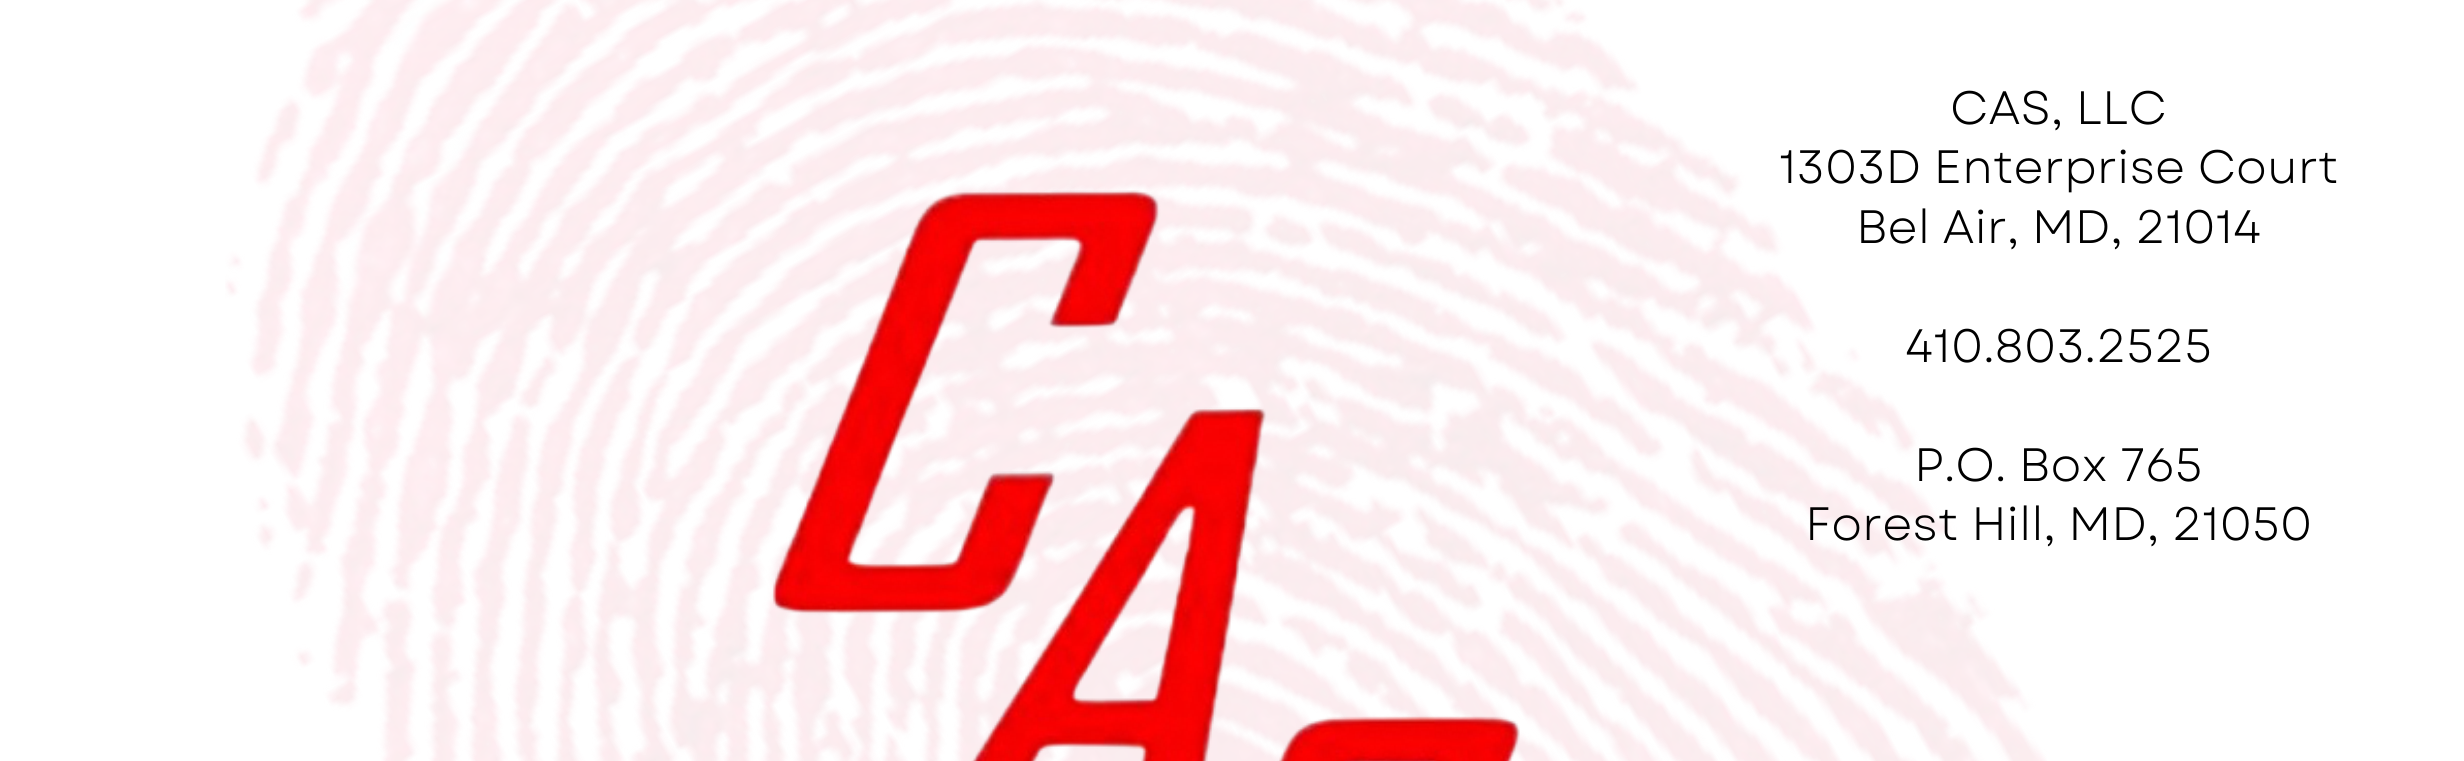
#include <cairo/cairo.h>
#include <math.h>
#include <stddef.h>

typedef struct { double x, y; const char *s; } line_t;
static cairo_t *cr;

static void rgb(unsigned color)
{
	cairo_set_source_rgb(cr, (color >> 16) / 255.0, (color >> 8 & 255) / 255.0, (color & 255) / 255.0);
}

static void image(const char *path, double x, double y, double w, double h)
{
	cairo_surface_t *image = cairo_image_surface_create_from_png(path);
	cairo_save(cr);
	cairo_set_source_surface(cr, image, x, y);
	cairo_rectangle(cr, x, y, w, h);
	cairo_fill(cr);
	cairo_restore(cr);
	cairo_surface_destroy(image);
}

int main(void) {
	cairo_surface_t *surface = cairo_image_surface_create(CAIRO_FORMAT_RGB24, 2464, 761);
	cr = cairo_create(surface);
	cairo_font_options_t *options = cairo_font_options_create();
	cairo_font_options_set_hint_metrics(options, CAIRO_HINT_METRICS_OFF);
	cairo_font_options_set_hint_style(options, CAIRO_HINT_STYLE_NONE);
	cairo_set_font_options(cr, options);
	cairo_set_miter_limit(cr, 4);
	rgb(0xffffff);
	cairo_paint(cr);
	image("img/1.png", 225, 0, 1822, 761);
	image("img/2.png", 772, 190, 748, 571);
	cairo_select_font_face(cr, "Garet", CAIRO_FONT_SLANT_NORMAL, CAIRO_FONT_WEIGHT_NORMAL);
	cairo_set_font_size(cr, 46.75);
	rgb(0x000000);
	{
		static const line_t items[] = {
			{1950, 124, "CAS, LLC"},
			{1779, 183, "1303D Enterprise Court"},
			{1856, 243, "Bel Air, MD, 21014"},
			{1905, 362, "410.803.2525"},
			{1914, 481, "P.O. Box 765"},
			{1805, 540, "Forest Hill, MD, 21050"},
		};
		for (size_t i = 0; i < sizeof items / sizeof *items; i++) {
			cairo_move_to(cr, items[i].x, items[i].y);
			cairo_show_text(cr, items[i].s);
		}
	}
	cairo_surface_write_to_png(surface, "page.png");
	cairo_font_options_destroy(options);
	cairo_destroy(cr);
	cairo_surface_destroy(surface);
	return 0;
}
